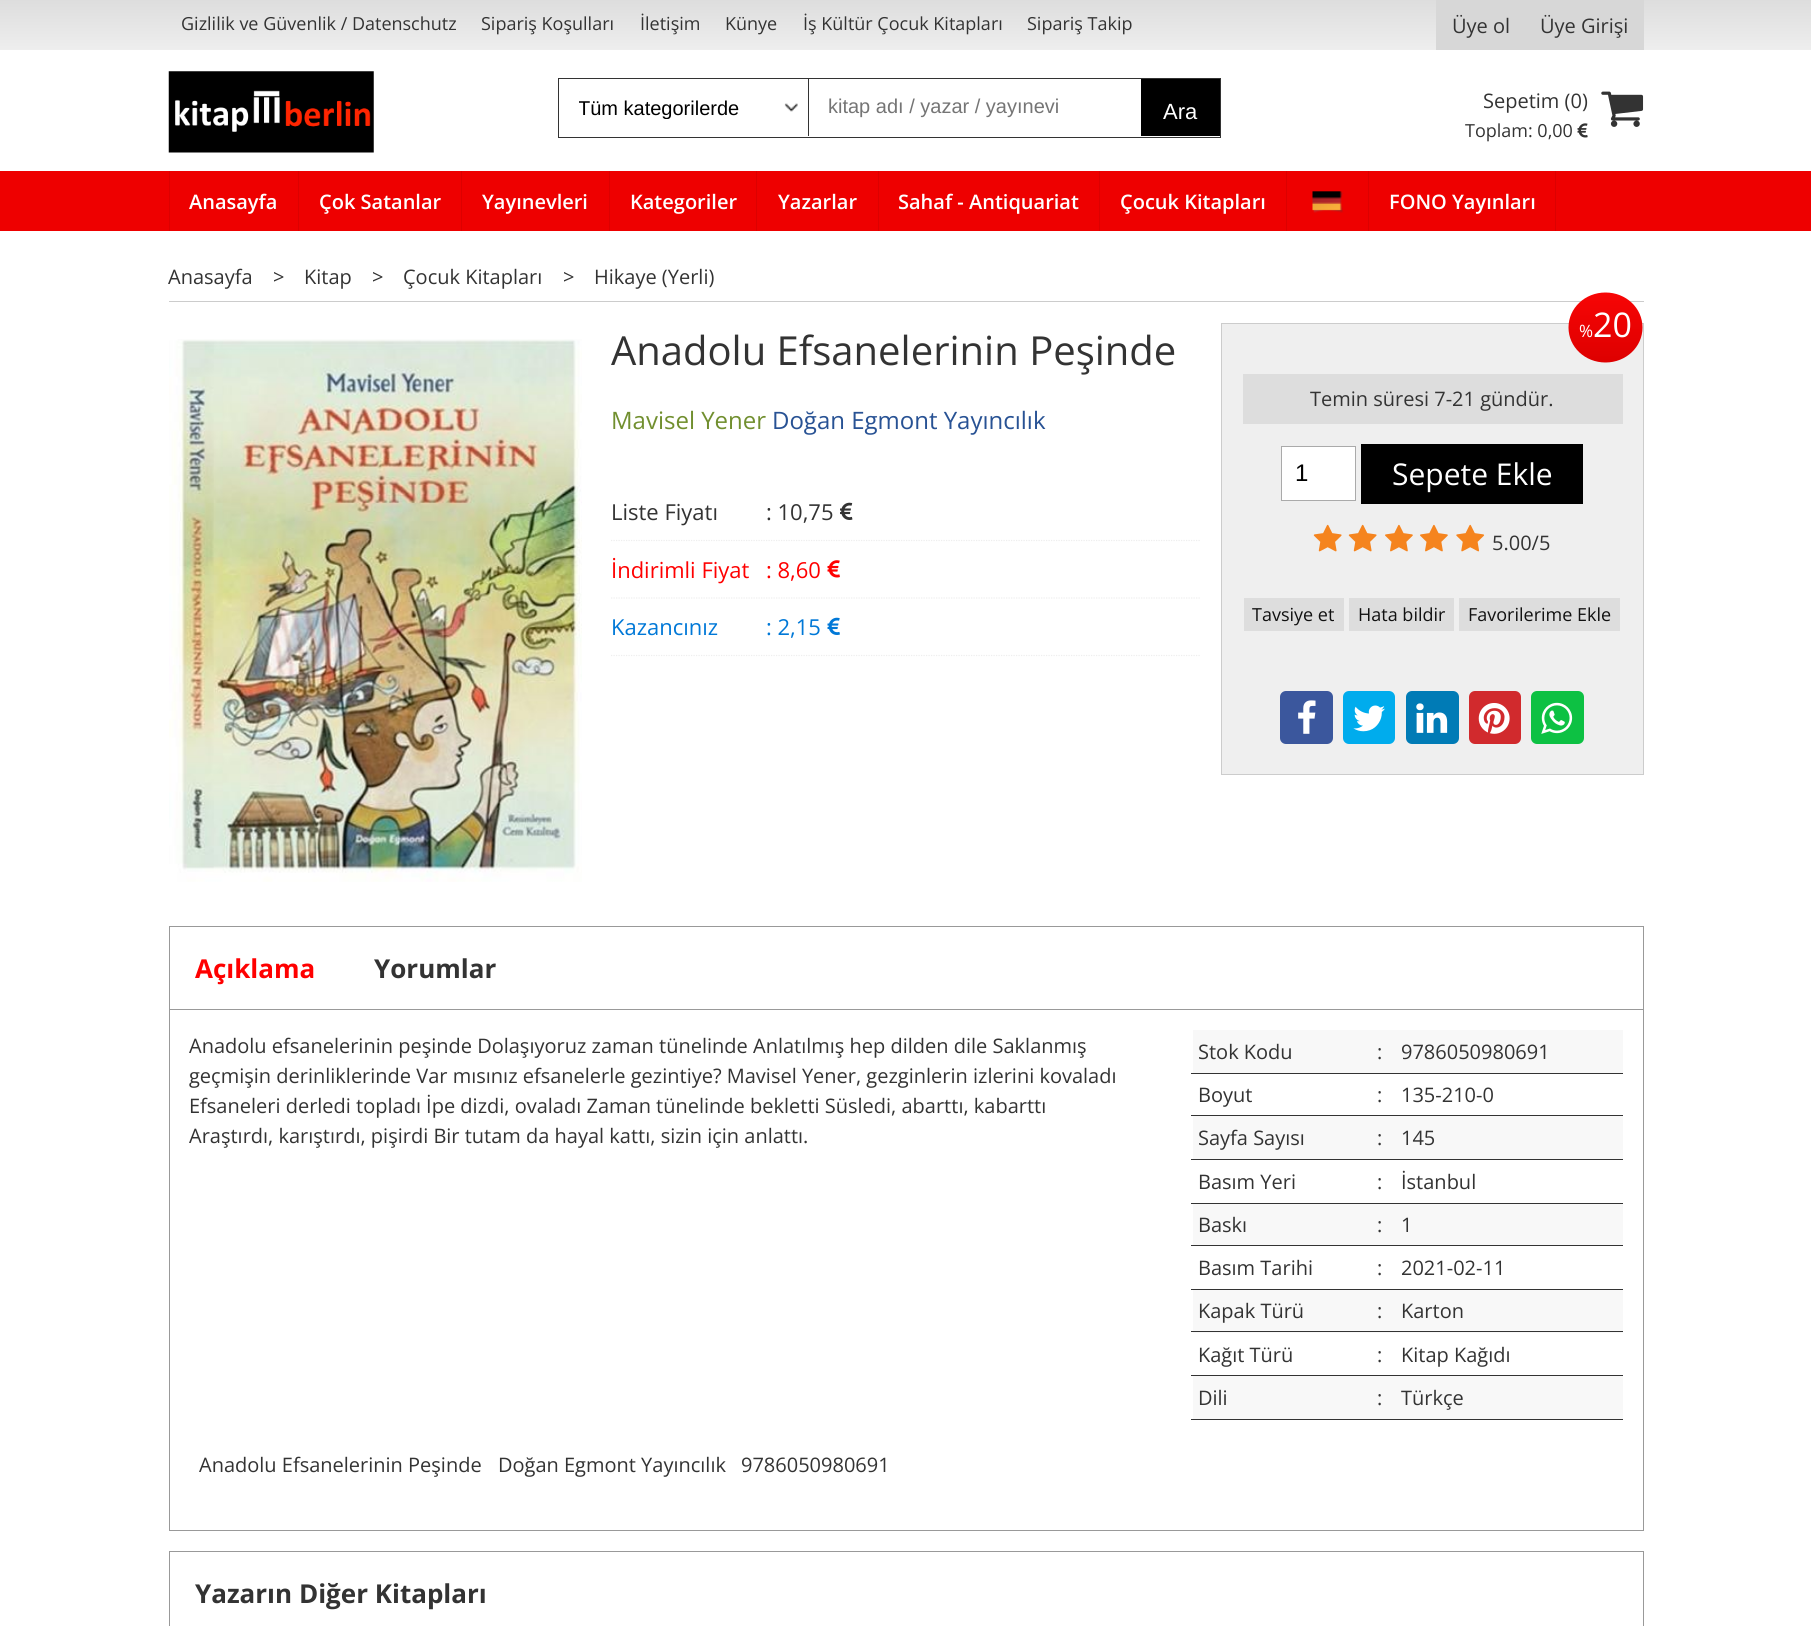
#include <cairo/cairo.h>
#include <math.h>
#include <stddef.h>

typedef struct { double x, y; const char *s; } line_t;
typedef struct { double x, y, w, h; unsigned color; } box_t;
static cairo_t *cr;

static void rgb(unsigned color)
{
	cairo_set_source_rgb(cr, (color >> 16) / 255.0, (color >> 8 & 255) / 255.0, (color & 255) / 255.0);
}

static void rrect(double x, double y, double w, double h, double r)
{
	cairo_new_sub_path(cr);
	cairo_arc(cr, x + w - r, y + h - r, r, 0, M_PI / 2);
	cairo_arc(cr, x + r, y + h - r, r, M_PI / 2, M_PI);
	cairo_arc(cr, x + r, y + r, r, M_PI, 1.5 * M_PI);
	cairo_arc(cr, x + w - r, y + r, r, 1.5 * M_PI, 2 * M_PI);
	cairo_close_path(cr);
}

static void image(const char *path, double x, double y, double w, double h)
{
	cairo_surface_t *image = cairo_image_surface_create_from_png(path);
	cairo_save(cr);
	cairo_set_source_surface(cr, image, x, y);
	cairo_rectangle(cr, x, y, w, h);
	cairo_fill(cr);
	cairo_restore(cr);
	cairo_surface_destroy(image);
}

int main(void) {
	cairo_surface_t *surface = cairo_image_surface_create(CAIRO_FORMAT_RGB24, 1811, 1626);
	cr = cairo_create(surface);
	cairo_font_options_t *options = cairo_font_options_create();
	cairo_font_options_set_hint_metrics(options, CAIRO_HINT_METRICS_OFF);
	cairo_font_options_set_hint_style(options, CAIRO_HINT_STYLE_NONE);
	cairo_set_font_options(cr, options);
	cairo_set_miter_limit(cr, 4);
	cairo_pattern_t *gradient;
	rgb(0xffffff);
	cairo_paint(cr);
	gradient = cairo_pattern_create_linear(906, 0, 906, 50);
	cairo_pattern_add_color_stop_rgba(gradient, 0, 0.867, 0.867, 0.867, 1);
	cairo_pattern_add_color_stop_rgba(gradient, 1, 0.933, 0.933, 0.933, 1);
	cairo_set_source(cr, gradient);
	cairo_pattern_destroy(gradient);
	cairo_rectangle(cr, 0, 0, 1811, 50);
	cairo_fill(cr);
	rgb(0xd7d7d7);
	cairo_rectangle(cr, 1436, 0, 208, 50);
	cairo_fill(cr);
	image("img/1.png", 168, 71, 206, 82);
	cairo_rectangle(cr, 558.5, 78.5, 662, 59);
	rgb(0x333333);
	cairo_set_line_width(cr, 1);
	cairo_stroke(cr);
	image("img/2.png", 784, 103, 14, 9);
	cairo_rectangle(cr, 808, 79, 1, 57);
	cairo_fill(cr);
	rgb(0x000000);
	cairo_rectangle(cr, 1141, 79, 79, 57);
	cairo_fill(cr);
	image("img/3.png", 1601, 91, 43, 36);
	image("img/4.png", 1577, 123, 11, 15);
	{
		static const box_t items[] = {
			{0, 171, 1811, 60, 0xee0000},
			{169, 171, 1, 60, 0xdd0000},
			{298, 171, 1, 60, 0xdd0000},
			{461, 171, 1, 60, 0xdd0000},
			{609, 171, 1, 60, 0xdd0000},
			{756, 171, 1, 60, 0xdd0000},
			{878, 171, 1, 60, 0xdd0000},
			{1099, 171, 1, 60, 0xdd0000},
			{1286, 171, 1, 60, 0xdd0000},
		};
		for (size_t i = 0; i < sizeof items / sizeof *items; i++) {
			rgb(items[i].color);
			cairo_rectangle(cr, items[i].x, items[i].y, items[i].w, items[i].h);
			cairo_fill(cr);
		}
	}
	image("img/5.png", 1312, 191, 32, 22);
	{
		static const box_t items[] = {
			{1555, 171, 1, 60, 0xdd0000},
			{1368, 171, 1, 60, 0xdd0000},
			{169, 301, 1475, 1, 0xcccccc},
		};
		for (size_t i = 0; i < sizeof items / sizeof *items; i++) {
			rgb(items[i].color);
			cairo_rectangle(cr, items[i].x, items[i].y, items[i].w, items[i].h);
			cairo_fill(cr);
		}
	}
	image("img/6.png", 169, 339, 413, 543);
	cairo_new_path(cr);
	cairo_move_to(cr, 611, 540.5);
	cairo_line_to(cr, 1201, 540.5);
	rgb(0xeeeeee);
	cairo_set_line_width(cr, 1.2);
	cairo_set_dash(cr, (double[]){1.25, 1.25}, 2, 0);
	cairo_stroke(cr);
	image("img/7.png", 840, 502, 13, 18);
	cairo_new_path(cr);
	cairo_move_to(cr, 611, 598);
	cairo_line_to(cr, 1201, 598);
	cairo_stroke(cr);
	image("img/8.png", 827, 560, 13, 18);
	cairo_new_path(cr);
	cairo_move_to(cr, 611, 655.5);
	cairo_line_to(cr, 1201, 655.5);
	cairo_stroke(cr);
	image("img/9.png", 827, 617, 13, 18);
	rgb(0xefefef);
	cairo_rectangle(cr, 1221.5, 323.5, 422, 451);
	cairo_fill_preserve(cr);
	rgb(0xcccccc);
	cairo_set_line_width(cr, 1);
	cairo_set_dash(cr, NULL, 0, 0);
	cairo_stroke(cr);
	gradient = cairo_pattern_create_linear(1606, 293, 1606, 363);
	cairo_pattern_add_color_stop_rgba(gradient, 0, 0.969, 0.02, 0.02, 1);
	cairo_pattern_add_color_stop_rgba(gradient, 1, 0.867, 0, 0, 1);
	cairo_set_source(cr, gradient);
	cairo_pattern_destroy(gradient);
	cairo_new_path(cr);
	cairo_move_to(cr, 1605.5, 292.5);
	cairo_curve_to(cr, 1626, 292.5, 1642.5, 308, 1642.5, 327.5);
	cairo_curve_to(cr, 1642.5, 347, 1626, 362.5, 1605.5, 362.5);
	cairo_curve_to(cr, 1585, 362.5, 1568.5, 347, 1568.5, 327.5);
	cairo_curve_to(cr, 1568.5, 308, 1585, 292.5, 1605.5, 292.5);
	cairo_close_path(cr);
	cairo_fill(cr);
	rgb(0xdddddd);
	cairo_rectangle(cr, 1243, 374, 380, 50);
	cairo_fill(cr);
	rgb(0xffffff);
	cairo_rectangle(cr, 1281.5, 446.5, 74, 54);
	cairo_fill_preserve(cr);
	rgb(0xaaaaaa);
	cairo_stroke(cr);
	rgb(0x000000);
	cairo_rectangle(cr, 1361, 444, 222, 60);
	cairo_fill(cr);
	image("img/10.png", 1313, 524, 29, 28);
	image("img/10.png", 1348, 524, 29, 28);
	image("img/11.png", 1385, 524, 28, 28);
	image("img/11.png", 1420, 524, 28, 28);
	image("img/12.png", 1456, 524, 29, 28);
	{
		static const box_t items[] = {
			{1244, 598, 100, 33, 0xdddddd},
			{1349, 598, 105, 33, 0xdddddd},
			{1459, 598, 161, 33, 0xdddddd},
		};
		for (size_t i = 0; i < sizeof items / sizeof *items; i++) {
			rgb(items[i].color);
			cairo_rectangle(cr, items[i].x, items[i].y, items[i].w, items[i].h);
			cairo_fill(cr);
		}
	}
	rgb(0x3b579d);
	rrect(1280, 691, 53, 53, 6);
	cairo_fill(cr);
	image("img/13.png", 1298, 700, 18, 34);
	rgb(0x00aced);
	rrect(1343, 691, 52, 53, 6);
	cairo_fill(cr);
	image("img/14.png", 1353, 705, 32, 27);
	rgb(0x007bb6);
	rrect(1406, 691, 53, 53, 6);
	cairo_fill(cr);
	image("img/15.png", 1416, 703, 32, 30);
	rgb(0xd12a2d);
	rrect(1469, 691, 52, 53, 6);
	cairo_fill(cr);
	image("img/16.png", 1478, 703, 32, 31);
	rgb(0x0dc143);
	rrect(1531, 691, 53, 53, 6);
	cairo_fill(cr);
	image("img/17.png", 1541, 702, 32, 32);
	cairo_rectangle(cr, 169.5, 926.5, 1474, 604);
	rgb(0x999999);
	cairo_stroke(cr);
	{
		static const box_t items[] = {
			{170, 1009, 1473, 1, 0x999999},
			{1193, 1030, 430, 43, 0xf8f8f8},
			{1191, 1073, 432, 1, 0x333333},
			{1191, 1115, 432, 1, 0x333333},
			{1193, 1116, 430, 43, 0xf8f8f8},
			{1191, 1159, 432, 1, 0x333333},
			{1191, 1203, 432, 1, 0x333333},
			{1193, 1204, 430, 41, 0xf8f8f8},
			{1191, 1245, 432, 1, 0x333333},
			{1191, 1289, 432, 1, 0x333333},
			{1193, 1290, 430, 43, 0xf8f8f8},
			{1191, 1331, 432, 1, 0x333333},
			{1191, 1375, 432, 1, 0x333333},
			{1193, 1376, 430, 43, 0xf8f8f8},
			{1191, 1419, 432, 1, 0x333333},
		};
		for (size_t i = 0; i < sizeof items / sizeof *items; i++) {
			rgb(items[i].color);
			cairo_rectangle(cr, items[i].x, items[i].y, items[i].w, items[i].h);
			cairo_fill(cr);
		}
	}
	cairo_rectangle(cr, 169.5, 1551.5, 1474, 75);
	rgb(0x999999);
	cairo_stroke(cr);
	cairo_select_font_face(cr, "Open Sans", CAIRO_FONT_SLANT_NORMAL, CAIRO_FONT_WEIGHT_NORMAL);
	cairo_set_font_size(cr, 18);
	rgb(0x333333);
	{
		static const line_t items[] = {
			{181, 30, "Gizlilik ve Güvenlik / Datenschutz"},
			{481, 30, "Sipariş Koşulları"},
			{640, 30, "İletişim"},
			{725, 30, "Künye"},
			{803, 30, "İş Kültür Çocuk Kitapları"},
			{1027, 30, "Sipariş Takip"},
		};
		for (size_t i = 0; i < sizeof items / sizeof *items; i++) {
			cairo_move_to(cr, items[i].x, items[i].y);
			cairo_show_text(cr, items[i].s);
		}
	}
	cairo_set_font_size(cr, 20);
	cairo_move_to(cr, 1452, 33);
	cairo_show_text(cr, "Üye ol");
	cairo_move_to(cr, 1540, 33);
	cairo_show_text(cr, "Üye Girişi");
	cairo_save(cr);
	cairo_rectangle(cr, 579, 98, 196, 21);
	cairo_clip(cr);
	cairo_select_font_face(cr, "Liberation Sans", CAIRO_FONT_SLANT_NORMAL, CAIRO_FONT_WEIGHT_NORMAL);
	rgb(0x000000);
	cairo_move_to(cr, 578, 115);
	cairo_show_text(cr, "Tüm kategorilerde");
	cairo_restore(cr);
	cairo_select_font_face(cr, "Liberation Sans", CAIRO_FONT_SLANT_NORMAL, CAIRO_FONT_WEIGHT_NORMAL);
	rgb(0x757575);
	cairo_move_to(cr, 828, 113);
	cairo_show_text(cr, "kitap adı / yazar / yayınevi");
	cairo_set_font_size(cr, 22);
	rgb(0xffffff);
	cairo_move_to(cr, 1163, 119);
	cairo_show_text(cr, "Ara");
	cairo_select_font_face(cr, "Open Sans", CAIRO_FONT_SLANT_NORMAL, CAIRO_FONT_WEIGHT_NORMAL);
	cairo_set_font_size(cr, 20);
	rgb(0x333333);
	cairo_move_to(cr, 1483, 108);
	cairo_show_text(cr, "Sepetim (0)");
	cairo_set_font_size(cr, 18);
	cairo_move_to(cr, 1465, 137);
	cairo_show_text(cr, "Toplam: 0,00");
	cairo_select_font_face(cr, "Open Sans SemiBold", CAIRO_FONT_SLANT_NORMAL, CAIRO_FONT_WEIGHT_NORMAL);
	cairo_set_font_size(cr, 20);
	rgb(0xffffff);
	{
		static const line_t items[] = {
			{189, 209, "Anasayfa"},
			{319, 209, "Çok Satanlar"},
			{482, 209, "Yayınevleri"},
			{630, 209, "Kategoriler"},
			{778, 209, "Yazarlar"},
			{898, 209, "Sahaf - Antiquariat"},
			{1120, 209, "Çocuk Kitapları"},
			{1389, 209, "FONO Yayınları"},
		};
		for (size_t i = 0; i < sizeof items / sizeof *items; i++) {
			cairo_move_to(cr, items[i].x, items[i].y);
			cairo_show_text(cr, items[i].s);
		}
	}
	cairo_select_font_face(cr, "Open Sans", CAIRO_FONT_SLANT_NORMAL, CAIRO_FONT_WEIGHT_NORMAL);
	rgb(0x333333);
	{
		static const line_t items[] = {
			{168, 284, "Anasayfa"},
			{273, 284, ">"},
			{304, 284, "Kitap"},
			{372, 284, ">"},
			{403, 284, "Çocuk Kitapları"},
			{563, 284, ">"},
			{594, 284, "Hikaye (Yerli)"},
		};
		for (size_t i = 0; i < sizeof items / sizeof *items; i++) {
			cairo_move_to(cr, items[i].x, items[i].y);
			cairo_show_text(cr, items[i].s);
		}
	}
	cairo_set_font_size(cr, 40);
	cairo_move_to(cr, 611, 365);
	cairo_show_text(cr, "Anadolu Efsanelerinin Peşinde");
	cairo_set_font_size(cr, 24);
	rgb(0x718f2f);
	cairo_move_to(cr, 611, 429);
	cairo_show_text(cr, "Mavisel Yener");
	rgb(0x285294);
	cairo_move_to(cr, 772, 429);
	cairo_show_text(cr, "Doğan Egmont Yayıncılık");
	cairo_set_font_size(cr, 22);
	rgb(0x333333);
	cairo_move_to(cr, 611, 520);
	cairo_show_text(cr, "Liste Fiyatı");
	cairo_move_to(cr, 766, 520);
	cairo_show_text(cr, ": 10,75");
	rgb(0xff0000);
	cairo_move_to(cr, 611, 578);
	cairo_show_text(cr, "İndirimli Fiyat");
	cairo_move_to(cr, 766, 578);
	cairo_show_text(cr, ": 8,60");
	rgb(0x0078d7);
	cairo_move_to(cr, 611, 635);
	cairo_show_text(cr, "Kazancınız");
	cairo_move_to(cr, 766, 635);
	cairo_show_text(cr, ": 2,15");
	cairo_set_font_size(cr, 17);
	rgb(0xffffff);
	cairo_move_to(cr, 1579, 337);
	cairo_show_text(cr, "%");
	cairo_set_font_size(cr, 34);
	cairo_move_to(cr, 1593, 337);
	cairo_show_text(cr, "20");
	cairo_set_font_size(cr, 20);
	rgb(0x333333);
	cairo_move_to(cr, 1310, 406);
	cairo_show_text(cr, "Temin süresi 7-21 gündür.");
	cairo_select_font_face(cr, "Liberation Sans", CAIRO_FONT_SLANT_NORMAL, CAIRO_FONT_WEIGHT_NORMAL);
	cairo_set_font_size(cr, 24);
	rgb(0x000000);
	cairo_move_to(cr, 1295, 481);
	cairo_show_text(cr, "1");
	cairo_select_font_face(cr, "Open Sans", CAIRO_FONT_SLANT_NORMAL, CAIRO_FONT_WEIGHT_NORMAL);
	cairo_set_font_size(cr, 30);
	rgb(0xffffff);
	cairo_move_to(cr, 1392, 485);
	cairo_show_text(cr, "Sepete Ekle");
	cairo_set_font_size(cr, 20);
	rgb(0x333333);
	cairo_move_to(cr, 1492, 550);
	cairo_show_text(cr, "5.00/5");
	cairo_set_font_size(cr, 18);
	rgb(0x111111);
	{
		static const line_t items[] = {
			{1252, 621, "Tavsiye et"},
			{1358, 621, "Hata bildir"},
			{1468, 621, "Favorilerime Ekle"},
		};
		for (size_t i = 0; i < sizeof items / sizeof *items; i++) {
			cairo_move_to(cr, items[i].x, items[i].y);
			cairo_show_text(cr, items[i].s);
		}
	}
	cairo_select_font_face(cr, "Open Sans", CAIRO_FONT_SLANT_NORMAL, CAIRO_FONT_WEIGHT_BOLD);
	cairo_set_font_size(cr, 26);
	rgb(0xff0000);
	cairo_move_to(cr, 195, 978);
	cairo_show_text(cr, "Açıklama");
	rgb(0x333333);
	cairo_move_to(cr, 374, 978);
	cairo_show_text(cr, "Yorumlar");
	cairo_select_font_face(cr, "Open Sans", CAIRO_FONT_SLANT_NORMAL, CAIRO_FONT_WEIGHT_NORMAL);
	cairo_set_font_size(cr, 20);
	{
		static const line_t items[] = {
			{189, 1053, "Anadolu efsanelerinin peşinde Dolaşıyoruz zaman tünelinde Anlatılmış hep dilden dile Saklanmış"},
			{189, 1083, "geçmişin derinliklerinde Var mısınız efsanelerle gezintiye? Mavisel Yener, gezginlerin izlerini kovaladı"},
			{189, 1113, "Efsaneleri derledi topladı İpe dizdi, ovaladı Zaman tünelinde bekletti Süsledi, abarttı, kabarttı"},
			{189, 1143, "Araştırdı, karıştırdı, pişirdi Bir tutam da hayal kattı, sizin için anlattı."},
			{1198, 1059, "Stok Kodu"},
			{1377, 1059, ":"},
			{1401, 1059, "9786050980691"},
			{1198, 1102, "Boyut"},
			{1377, 1102, ":"},
			{1401, 1102, "135-210-0"},
			{1198, 1145, "Sayfa Sayısı"},
			{1377, 1145, ":"},
			{1401, 1145, "145"},
			{1198, 1189, "Basım Yeri"},
			{1377, 1189, ":"},
			{1401, 1189, "İstanbul"},
			{1198, 1232, "Baskı"},
			{1377, 1232, ":"},
			{1401, 1232, "1"},
			{1198, 1275, "Basım Tarihi"},
			{1377, 1275, ":"},
			{1401, 1275, "2021-02-11"},
			{1198, 1318, "Kapak Türü"},
			{1377, 1318, ":"},
			{1401, 1318, "Karton"},
			{1198, 1362, "Kağıt Türü"},
			{1377, 1362, ":"},
			{1401, 1362, "Kitap Kağıdı"},
			{1198, 1405, "Dili"},
			{1377, 1405, ":"},
			{1401, 1405, "Türkçe"},
			{199, 1472, "Anadolu Efsanelerinin Peşinde"},
			{498, 1472, "Doğan Egmont Yayıncılık"},
			{741, 1472, "9786050980691"},
		};
		for (size_t i = 0; i < sizeof items / sizeof *items; i++) {
			cairo_move_to(cr, items[i].x, items[i].y);
			cairo_show_text(cr, items[i].s);
		}
	}
	cairo_select_font_face(cr, "Open Sans", CAIRO_FONT_SLANT_NORMAL, CAIRO_FONT_WEIGHT_BOLD);
	cairo_set_font_size(cr, 26);
	cairo_move_to(cr, 195, 1603);
	cairo_show_text(cr, "Yazarın Diğer Kitapları");
	cairo_surface_write_to_png(surface, "page.png");
	cairo_font_options_destroy(options);
	cairo_destroy(cr);
	cairo_surface_destroy(surface);
	return 0;
}
